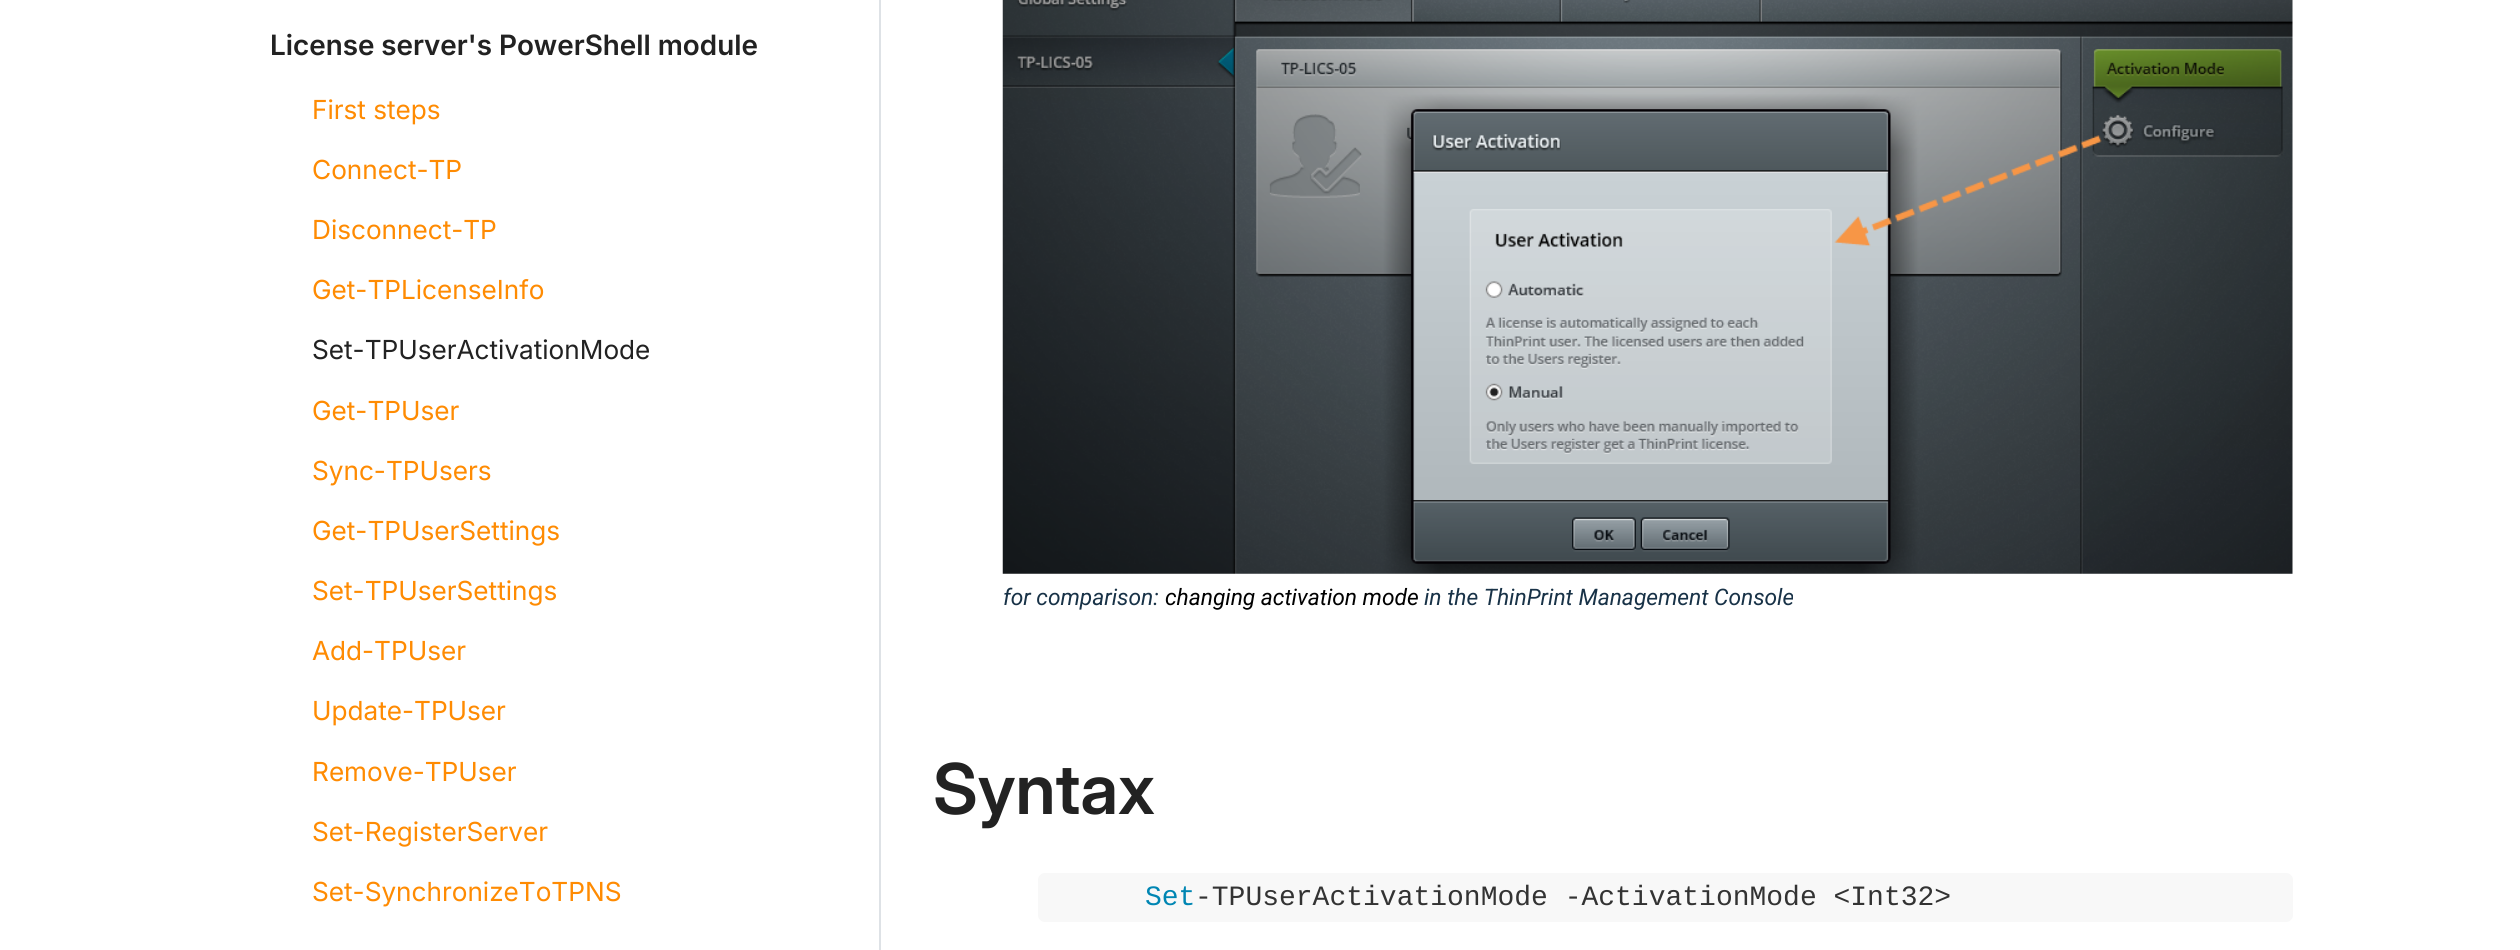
#include <cairo/cairo.h>
#include <math.h>
#include <stddef.h>

typedef struct { double x, y; const char *s; } line_t;
static cairo_t *cr;

static void rgb(unsigned color)
{
	cairo_set_source_rgb(cr, (color >> 16) / 255.0, (color >> 8 & 255) / 255.0, (color & 255) / 255.0);
}

static void rrect(double x, double y, double w, double h, double r)
{
	cairo_new_sub_path(cr);
	cairo_arc(cr, x + w - r, y + h - r, r, 0, M_PI / 2);
	cairo_arc(cr, x + r, y + h - r, r, M_PI / 2, M_PI);
	cairo_arc(cr, x + r, y + r, r, M_PI, 1.5 * M_PI);
	cairo_arc(cr, x + w - r, y + r, r, 1.5 * M_PI, 2 * M_PI);
	cairo_close_path(cr);
}

static void image(const char *path, double x, double y, double w, double h)
{
	cairo_surface_t *image = cairo_image_surface_create_from_png(path);
	cairo_save(cr);
	cairo_set_source_surface(cr, image, x, y);
	cairo_rectangle(cr, x, y, w, h);
	cairo_fill(cr);
	cairo_restore(cr);
	cairo_surface_destroy(image);
}

int main(void) {
	cairo_surface_t *surface = cairo_image_surface_create(CAIRO_FORMAT_RGB24, 2520, 950);
	cr = cairo_create(surface);
	cairo_font_options_t *options = cairo_font_options_create();
	cairo_font_options_set_hint_metrics(options, CAIRO_HINT_METRICS_OFF);
	cairo_font_options_set_hint_style(options, CAIRO_HINT_STYLE_NONE);
	cairo_set_font_options(cr, options);
	cairo_set_miter_limit(cr, 4);
	rgb(0xffffff);
	cairo_paint(cr);
	rgb(0xdee2e6);
	cairo_rectangle(cr, 879, 0, 2, 950);
	cairo_fill(cr);
	image("img/1.png", 1002, 0, 1291, 574);
	rgb(0xf8f8f8);
	rrect(1038, 873, 1255, 49, 7);
	cairo_fill(cr);
	cairo_select_font_face(cr, "Inter SemiBold", CAIRO_FONT_SLANT_NORMAL, CAIRO_FONT_WEIGHT_NORMAL);
	cairo_set_font_size(cr, 28);
	rgb(0x222222);
	cairo_move_to(cr, 270, 55);
	cairo_show_text(cr, "License server's PowerShell module");
	cairo_select_font_face(cr, "Inter", CAIRO_FONT_SLANT_NORMAL, CAIRO_FONT_WEIGHT_NORMAL);
	cairo_set_font_size(cr, 26.25);
	rgb(0xff8b02);
	{
		static const line_t items[] = {
			{312, 119, "First steps"},
			{312, 179, "Connect-TP"},
			{312, 239, "Disconnect-TP"},
			{312, 299, "Get-TPLicenseInfo"},
		};
		for (size_t i = 0; i < sizeof items / sizeof *items; i++) {
			cairo_move_to(cr, items[i].x, items[i].y);
			cairo_show_text(cr, items[i].s);
		}
	}
	rgb(0x222222);
	cairo_move_to(cr, 312, 359);
	cairo_show_text(cr, "Set-TPUserActivationMode");
	rgb(0xff8b02);
	{
		static const line_t items[] = {
			{312, 420, "Get-TPUser"},
			{312, 480, "Sync-TPUsers"},
			{312, 540, "Get-TPUserSettings"},
			{312, 600, "Set-TPUserSettings"},
			{312, 660, "Add-TPUser"},
			{312, 720, "Update-TPUser"},
			{312, 781, "Remove-TPUser"},
			{312, 841, "Set-RegisterServer"},
			{312, 901, "Set-SynchronizeToTPNS"},
		};
		for (size_t i = 0; i < sizeof items / sizeof *items; i++) {
			cairo_move_to(cr, items[i].x, items[i].y);
			cairo_show_text(cr, items[i].s);
		}
	}
	cairo_select_font_face(cr, "Roboto", CAIRO_FONT_SLANT_ITALIC, CAIRO_FONT_WEIGHT_NORMAL);
	cairo_set_font_size(cr, 22.75);
	rgb(0x183247);
	cairo_move_to(cr, 1003, 605);
	cairo_show_text(cr, "for comparison:");
	rgb(0x000000);
	cairo_move_to(cr, 1165, 605);
	cairo_show_text(cr, "changing activation mode");
	rgb(0x183247);
	cairo_move_to(cr, 1424, 605);
	cairo_show_text(cr, "in the ThinPrint Management Console");
	cairo_select_font_face(cr, "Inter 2 SemiBold", CAIRO_FONT_SLANT_NORMAL, CAIRO_FONT_WEIGHT_NORMAL);
	cairo_set_font_size(cr, 70);
	rgb(0x222222);
	cairo_move_to(cr, 933, 814);
	cairo_show_text(cr, "Syntax");
	cairo_select_font_face(cr, "Liberation Mono", CAIRO_FONT_SLANT_NORMAL, CAIRO_FONT_WEIGHT_NORMAL);
	cairo_set_font_size(cr, 28);
	rgb(0x0086b3);
	cairo_move_to(cr, 1145, 905);
	cairo_show_text(cr, "Set");
	rgb(0x333333);
	cairo_move_to(cr, 1195, 905);
	cairo_show_text(cr, "-TPUserActivationMode -ActivationMode <Int32>");
	cairo_surface_write_to_png(surface, "page.png");
	cairo_font_options_destroy(options);
	cairo_destroy(cr);
	cairo_surface_destroy(surface);
	return 0;
}
